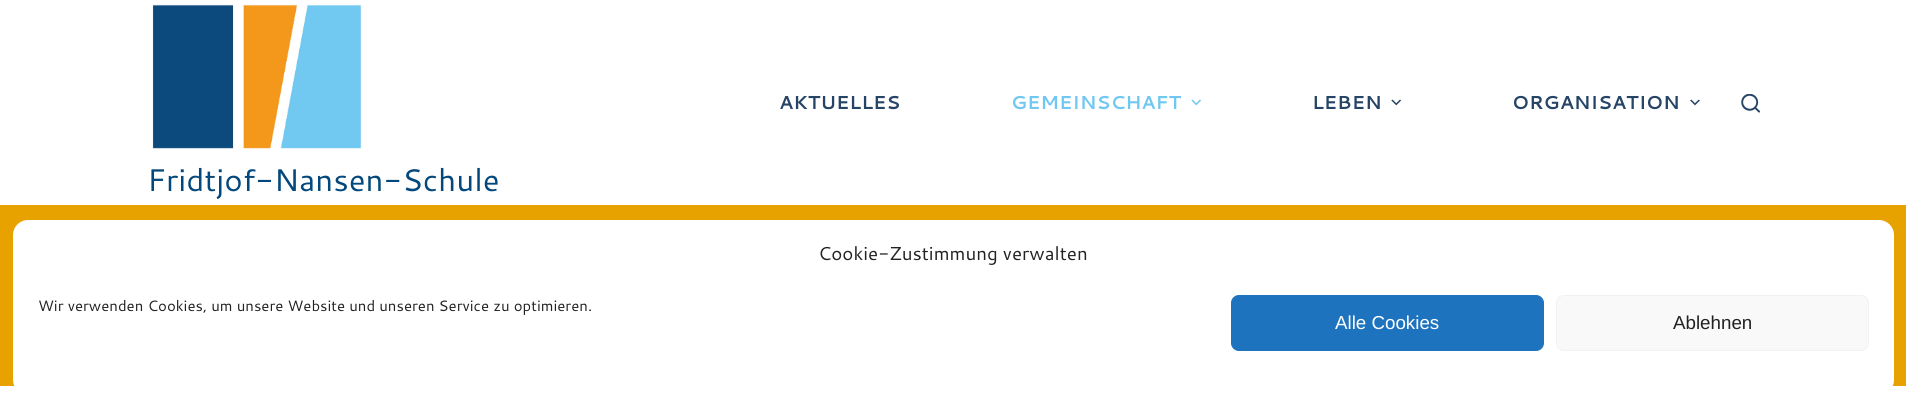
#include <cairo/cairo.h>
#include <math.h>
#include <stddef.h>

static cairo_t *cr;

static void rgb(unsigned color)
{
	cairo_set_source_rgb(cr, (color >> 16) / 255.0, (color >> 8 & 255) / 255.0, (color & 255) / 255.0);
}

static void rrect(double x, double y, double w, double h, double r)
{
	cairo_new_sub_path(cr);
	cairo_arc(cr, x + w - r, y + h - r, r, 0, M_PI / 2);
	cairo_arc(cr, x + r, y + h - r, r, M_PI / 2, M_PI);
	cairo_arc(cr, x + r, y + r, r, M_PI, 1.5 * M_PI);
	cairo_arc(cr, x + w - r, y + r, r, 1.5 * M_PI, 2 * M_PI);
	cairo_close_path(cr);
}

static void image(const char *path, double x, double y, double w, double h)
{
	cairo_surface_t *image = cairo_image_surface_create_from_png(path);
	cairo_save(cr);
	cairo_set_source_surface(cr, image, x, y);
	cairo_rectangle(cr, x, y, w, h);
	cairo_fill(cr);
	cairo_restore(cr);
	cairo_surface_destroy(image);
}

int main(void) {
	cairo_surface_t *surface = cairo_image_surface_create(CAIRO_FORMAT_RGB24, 1906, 407);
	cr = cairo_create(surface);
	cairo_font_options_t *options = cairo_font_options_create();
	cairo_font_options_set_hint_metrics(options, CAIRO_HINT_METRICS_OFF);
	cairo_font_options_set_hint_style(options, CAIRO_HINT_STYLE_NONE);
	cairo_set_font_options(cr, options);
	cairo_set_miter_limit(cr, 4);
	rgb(0xffffff);
	cairo_paint(cr);
	image("img/1.png", 1191, 99, 10, 7);
	image("img/2.png", 1391, 99, 10, 7);
	image("img/3.png", 1690, 99, 10, 7);
	image("img/4.png", 1741, 94, 19, 19);
	image("img/5.png", 152, 4, 210, 145);
	rgb(0xe8a200);
	cairo_rectangle(cr, 0, 205, 1906, 181);
	cairo_fill(cr);
	rgb(0xffffff);
	rrect(13, 220, 1881, 175, 15);
	cairo_fill(cr);
	rgb(0x1e73be);
	rrect(1231.5, 295.5, 312, 55, 7.5);
	cairo_fill_preserve(cr);
	cairo_set_line_width(cr, 1);
	cairo_stroke(cr);
	rgb(0xf9f9f9);
	rrect(1556.5, 295.5, 312, 55, 7.5);
	cairo_fill_preserve(cr);
	rgb(0xf2f2f2);
	cairo_stroke(cr);
	cairo_select_font_face(cr, "Cantarell", CAIRO_FONT_SLANT_NORMAL, CAIRO_FONT_WEIGHT_BOLD);
	cairo_set_font_size(cr, 18.75);
	rgb(0x264466);
	cairo_move_to(cr, 779, 109);
	cairo_show_text(cr, "AKTUELLES");
	rgb(0x70c8f2);
	cairo_move_to(cr, 1011, 109);
	cairo_show_text(cr, "GEMEINSCHAFT");
	rgb(0x264466);
	cairo_move_to(cr, 1312, 109);
	cairo_show_text(cr, "LEBEN");
	cairo_move_to(cr, 1512, 109);
	cairo_show_text(cr, "ORGANISATION");
	cairo_select_font_face(cr, "Cantarell", CAIRO_FONT_SLANT_NORMAL, CAIRO_FONT_WEIGHT_NORMAL);
	cairo_set_font_size(cr, 31.25);
	rgb(0x03487c);
	cairo_move_to(cr, 147, 191);
	cairo_show_text(cr, "Fridtjof-Nansen-Schule");
	cairo_set_font_size(cr, 18.75);
	rgb(0x222222);
	cairo_move_to(cr, 818, 260);
	cairo_show_text(cr, "Cookie-Zustimmung verwalten");
	cairo_set_font_size(cr, 15);
	cairo_move_to(cr, 38, 311);
	cairo_show_text(cr, "Wir verwenden Cookies, um unsere Website und unseren Service zu optimieren.");
	cairo_select_font_face(cr, "Liberation Sans", CAIRO_FONT_SLANT_NORMAL, CAIRO_FONT_WEIGHT_NORMAL);
	cairo_set_font_size(cr, 18.75);
	rgb(0xffffff);
	cairo_move_to(cr, 1335, 329);
	cairo_show_text(cr, "Alle Cookies");
	rgb(0x222222);
	cairo_move_to(cr, 1673, 329);
	cairo_show_text(cr, "Ablehnen");
	cairo_surface_write_to_png(surface, "page.png");
	cairo_font_options_destroy(options);
	cairo_destroy(cr);
	cairo_surface_destroy(surface);
	return 0;
}
